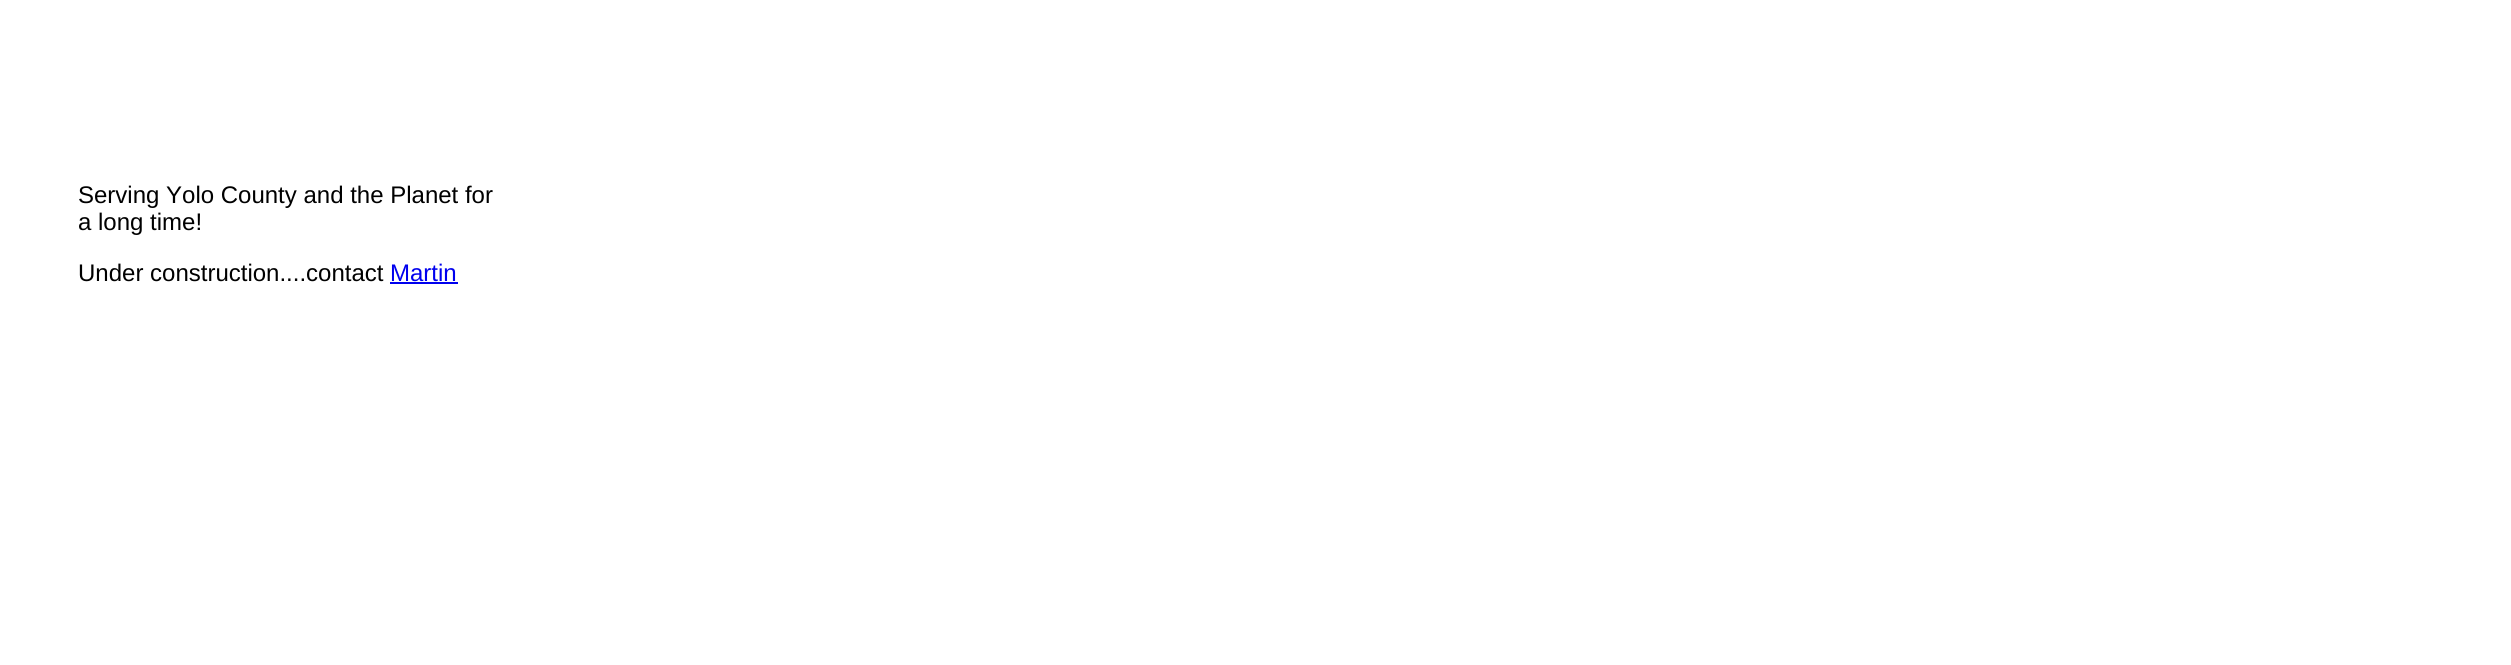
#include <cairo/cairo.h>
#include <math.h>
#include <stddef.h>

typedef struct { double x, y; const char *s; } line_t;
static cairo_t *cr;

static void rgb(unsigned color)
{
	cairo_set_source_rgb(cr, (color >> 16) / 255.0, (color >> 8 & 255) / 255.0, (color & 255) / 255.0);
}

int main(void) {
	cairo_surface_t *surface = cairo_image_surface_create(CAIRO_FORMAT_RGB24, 2511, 665);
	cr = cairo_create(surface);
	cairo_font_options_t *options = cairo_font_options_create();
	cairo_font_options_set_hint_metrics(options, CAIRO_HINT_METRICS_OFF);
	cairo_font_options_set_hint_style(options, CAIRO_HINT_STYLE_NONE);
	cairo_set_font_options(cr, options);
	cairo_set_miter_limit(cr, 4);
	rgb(0xffffff);
	cairo_paint(cr);
	rgb(0x0000ee);
	cairo_rectangle(cr, 390, 282, 68, 2);
	cairo_fill(cr);
	cairo_select_font_face(cr, "Liberation Sans", CAIRO_FONT_SLANT_NORMAL, CAIRO_FONT_WEIGHT_NORMAL);
	cairo_set_font_size(cr, 24);
	rgb(0x000000);
	{
		static const line_t items[] = {
			{78, 203, "Serving Yolo County and the Planet for"},
			{78, 230, "a long time!"},
			{78, 281, "Under construction....contact"},
		};
		for (size_t i = 0; i < sizeof items / sizeof *items; i++) {
			cairo_move_to(cr, items[i].x, items[i].y);
			cairo_show_text(cr, items[i].s);
		}
	}
	rgb(0x0000ee);
	cairo_move_to(cr, 390, 281);
	cairo_show_text(cr, "Martin");
	cairo_surface_write_to_png(surface, "page.png");
	cairo_font_options_destroy(options);
	cairo_destroy(cr);
	cairo_surface_destroy(surface);
	return 0;
}
